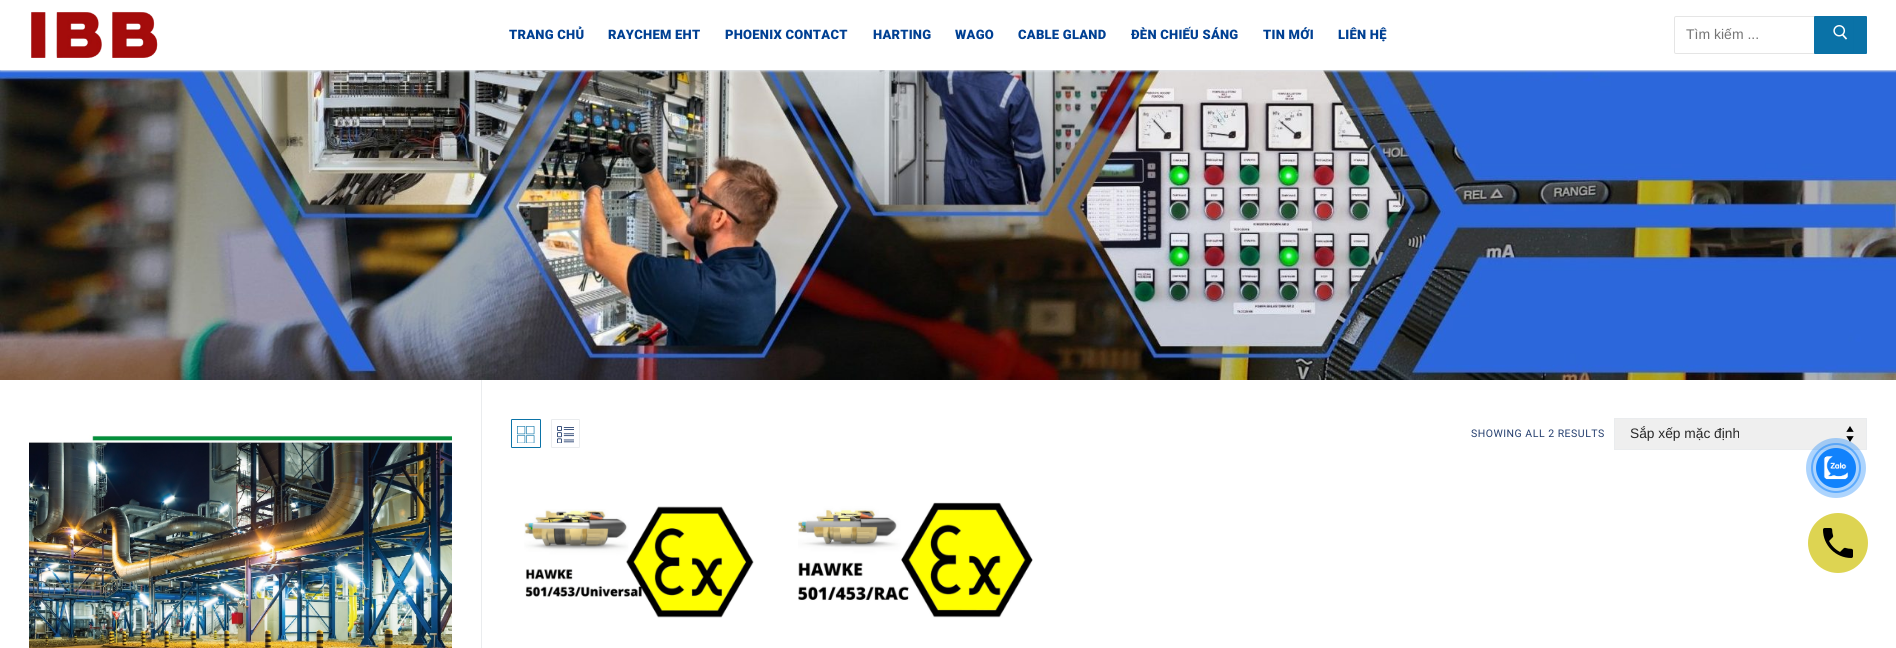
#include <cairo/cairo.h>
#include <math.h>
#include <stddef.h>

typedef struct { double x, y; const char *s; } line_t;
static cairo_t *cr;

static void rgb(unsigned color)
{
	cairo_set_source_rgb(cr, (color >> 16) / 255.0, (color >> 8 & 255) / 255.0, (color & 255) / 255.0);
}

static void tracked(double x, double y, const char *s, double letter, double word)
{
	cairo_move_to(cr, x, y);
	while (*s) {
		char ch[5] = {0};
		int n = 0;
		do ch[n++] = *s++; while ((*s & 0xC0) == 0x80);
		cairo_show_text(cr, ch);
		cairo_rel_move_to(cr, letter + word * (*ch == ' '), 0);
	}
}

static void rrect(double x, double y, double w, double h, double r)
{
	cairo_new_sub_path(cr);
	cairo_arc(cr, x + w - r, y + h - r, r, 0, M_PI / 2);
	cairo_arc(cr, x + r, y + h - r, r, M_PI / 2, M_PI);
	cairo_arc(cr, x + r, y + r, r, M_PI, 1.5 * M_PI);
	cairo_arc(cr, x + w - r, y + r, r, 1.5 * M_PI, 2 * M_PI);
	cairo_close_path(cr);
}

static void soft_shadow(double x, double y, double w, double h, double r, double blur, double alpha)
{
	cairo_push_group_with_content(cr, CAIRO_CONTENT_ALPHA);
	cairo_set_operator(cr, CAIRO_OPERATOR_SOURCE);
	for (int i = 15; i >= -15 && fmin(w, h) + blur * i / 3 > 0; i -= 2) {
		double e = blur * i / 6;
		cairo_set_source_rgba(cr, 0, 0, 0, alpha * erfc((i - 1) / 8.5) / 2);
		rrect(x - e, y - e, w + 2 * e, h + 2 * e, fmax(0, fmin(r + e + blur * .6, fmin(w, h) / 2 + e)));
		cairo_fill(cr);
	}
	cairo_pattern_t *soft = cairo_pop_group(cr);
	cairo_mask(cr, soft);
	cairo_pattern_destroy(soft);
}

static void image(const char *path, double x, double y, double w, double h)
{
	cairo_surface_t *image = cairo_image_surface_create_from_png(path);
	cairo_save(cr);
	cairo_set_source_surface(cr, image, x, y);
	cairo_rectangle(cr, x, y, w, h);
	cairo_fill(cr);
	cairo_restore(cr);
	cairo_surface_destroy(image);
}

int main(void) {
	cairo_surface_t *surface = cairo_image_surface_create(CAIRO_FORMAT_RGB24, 1896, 648);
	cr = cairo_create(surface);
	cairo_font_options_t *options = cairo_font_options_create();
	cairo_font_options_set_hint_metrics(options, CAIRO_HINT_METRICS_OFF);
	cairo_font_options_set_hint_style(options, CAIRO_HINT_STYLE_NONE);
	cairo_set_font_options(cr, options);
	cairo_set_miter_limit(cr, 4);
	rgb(0xffffff);
	cairo_paint(cr);
	image("img/3.png", 0, 70, 1896, 310);
	cairo_save(cr);
	cairo_rectangle(cr, 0, 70, 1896, 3);
	cairo_clip(cr);
	rgb(0xe1e5ea);
	soft_shadow(0, 1, 1896, 70, 0, 1, 1);
	cairo_restore(cr);
	image("img/1.png", 31, 11, 127, 47);
	rrect(1674.5, 16.5, 179, 37, 1.5);
	rgb(0xe5e5e5);
	cairo_set_line_width(cr, 1);
	cairo_stroke(cr);
	cairo_set_source_rgba(cr, 0.004, 0.427, 0.639, 0.96);
	rrect(1814, 16, 53, 38, 1);
	cairo_fill(cr);
	image("img/2.png", 1833, 25, 15, 15);
	rgb(0xeaecee);
	cairo_rectangle(cr, 481, 380, 1, 268);
	cairo_fill(cr);
	rrect(511.5, 419.5, 29, 28, 0.5);
	rgb(0x0b73a7);
	cairo_stroke(cr);
	image("img/4.png", 517, 426, 18, 17);
	rrect(551.5, 419.5, 28, 28, 0.5);
	rgb(0xeaecee);
	cairo_stroke(cr);
	image("img/5.png", 557, 426, 17, 17);
	rgb(0xefefef);
	cairo_rectangle(cr, 1615, 419, 251, 30);
	cairo_fill(cr);
	image("img/6.png", 1846, 426, 8, 16);
	cairo_rectangle(cr, 1614.5, 418.5, 252, 31);
	rgb(0xeaecee);
	cairo_stroke(cr);
	image("img/7.png", 524, 506, 230, 112);
	image("img/8.png", 798, 502, 235, 116);
	image("img/9.png", 29, 435, 423, 213);
	cairo_arc(cr, 1836, 468, 24, 0, 2 * M_PI);
	cairo_set_source_rgba(cr, 0.067, 0.51, 0.988, 0.5);
	cairo_set_line_width(cr, 2);
	cairo_stroke(cr);
	cairo_set_source_rgba(cr, 0.067, 0.51, 0.988, 0.34);
	cairo_arc(cr, 1836, 468, 30, 0, 2 * M_PI);
	cairo_fill(cr);
	rgb(0x1182fc);
	cairo_arc(cr, 1836, 468, 20, 0, 2 * M_PI);
	cairo_fill(cr);
	image("img/10.png", 1823, 456, 25, 24);
	rgb(0xddd452);
	cairo_arc(cr, 1838, 543, 30, 0, 2 * M_PI);
	cairo_fill(cr);
	image("img/11.png", 1823, 528, 30, 30);
	cairo_select_font_face(cr, "Roboto Black", CAIRO_FONT_SLANT_NORMAL, CAIRO_FONT_WEIGHT_NORMAL);
	cairo_set_font_size(cr, 13);
	rgb(0x004093);
	{
		static const line_t items[] = {
			{509, 39, "TRANG CHỦ"},
			{608, 39, "RAYCHEM EHT"},
			{725, 39, "PHOENIX CONTACT"},
			{873, 39, "HARTING"},
			{955, 39, "WAGO"},
			{1018, 39, "CABLE GLAND"},
			{1131, 39, "ĐÈN CHIẾU SÁNG"},
			{1263, 39, "TIN MỚI"},
			{1338, 39, "LIÊN HỆ"},
		};
		for (size_t i = 0; i < sizeof items / sizeof *items; i++) {
			tracked(items[i].x, items[i].y, items[i].s, 0.25, 0);
		}
	}
	cairo_select_font_face(cr, "Liberation Sans", CAIRO_FONT_SLANT_NORMAL, CAIRO_FONT_WEIGHT_NORMAL);
	cairo_set_font_size(cr, 14);
	rgb(0x757575);
	cairo_move_to(cr, 1686, 39);
	cairo_show_text(cr, "Tìm kiếm ...");
	cairo_select_font_face(cr, "Roboto", CAIRO_FONT_SLANT_NORMAL, CAIRO_FONT_WEIGHT_NORMAL);
	cairo_set_font_size(cr, 10.5);
	rgb(0x243e6e);
	tracked(1471, 437, "SHOWING ALL 2 RESULTS", 0.5, 0);
	cairo_select_font_face(cr, "Liberation Sans", CAIRO_FONT_SLANT_NORMAL, CAIRO_FONT_WEIGHT_NORMAL);
	cairo_set_font_size(cr, 13.75);
	rgb(0x282828);
	cairo_move_to(cr, 1630, 438);
	cairo_show_text(cr, "Sắp xếp mặc định");
	cairo_surface_write_to_png(surface, "page.png");
	cairo_font_options_destroy(options);
	cairo_destroy(cr);
	cairo_surface_destroy(surface);
	return 0;
}
